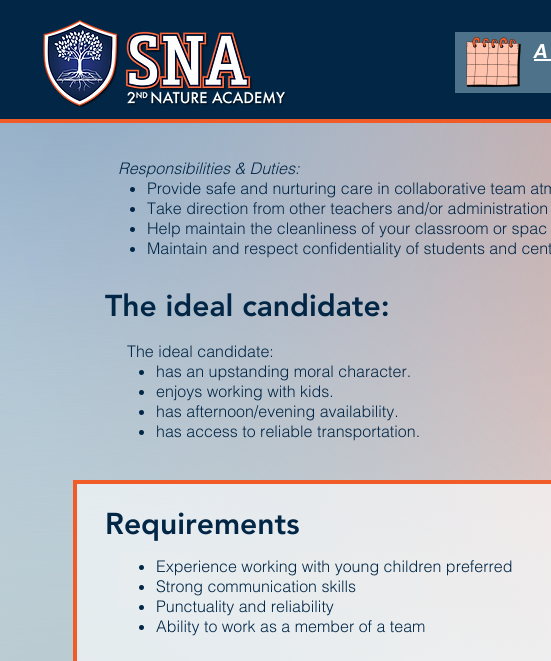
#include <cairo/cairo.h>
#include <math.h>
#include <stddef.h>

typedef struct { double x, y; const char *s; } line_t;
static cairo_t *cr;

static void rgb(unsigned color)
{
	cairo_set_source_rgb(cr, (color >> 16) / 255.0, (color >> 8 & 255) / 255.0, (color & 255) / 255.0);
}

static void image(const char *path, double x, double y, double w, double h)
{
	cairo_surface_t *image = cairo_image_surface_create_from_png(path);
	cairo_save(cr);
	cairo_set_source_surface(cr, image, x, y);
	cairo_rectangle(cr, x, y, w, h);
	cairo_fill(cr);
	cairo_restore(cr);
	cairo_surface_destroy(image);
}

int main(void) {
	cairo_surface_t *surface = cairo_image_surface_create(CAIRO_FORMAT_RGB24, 551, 661);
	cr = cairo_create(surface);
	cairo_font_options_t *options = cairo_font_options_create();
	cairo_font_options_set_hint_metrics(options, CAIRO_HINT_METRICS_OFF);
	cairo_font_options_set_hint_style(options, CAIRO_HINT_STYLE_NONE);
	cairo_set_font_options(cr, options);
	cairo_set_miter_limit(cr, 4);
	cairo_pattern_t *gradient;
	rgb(0xffffff);
	cairo_paint(cr);
	rgb(0xf15b27);
	cairo_rectangle(cr, 0, 119, 551, 4);
	cairo_fill(cr);
	rgb(0x012646);
	cairo_rectangle(cr, 0, 0, 551, 119);
	cairo_fill(cr);
	image("img/1.png", 43, 20, 244, 88);
	rgb(0x4d7289);
	cairo_rectangle(cr, 455, 32, 96, 61);
	cairo_fill(cr);
	image("img/2.png", 466, 37, 55, 50);
	rgb(0xffffff);
	cairo_rectangle(cr, 534, 59, 17, 2);
	cairo_fill(cr);
	gradient = cairo_pattern_create_radial(918, -0.4, 0, 918, -0.4, 1396);
	cairo_pattern_add_color_stop_rgba(gradient, 0, 0.961, 0.549, 0.408, 1);
	cairo_pattern_add_color_stop_rgba(gradient, 0.7, 1, 1, 1, 1);
	cairo_set_source(cr, gradient);
	cairo_pattern_destroy(gradient);
	cairo_rectangle(cr, 0, 123, 551, 538);
	cairo_fill(cr);
	gradient = cairo_pattern_create_radial(60, 14, 0, 60, 14, 1386);
	cairo_pattern_add_color_stop_rgba(gradient, 0, 0.537, 0.659, 0.765, 1);
	cairo_pattern_add_color_stop_rgba(gradient, 0.7, 0.537, 0.659, 0.765, 0);
	cairo_set_source(cr, gradient);
	cairo_pattern_destroy(gradient);
	cairo_rectangle(cr, 0, 123, 551, 538);
	cairo_fill(cr);
	gradient = cairo_pattern_create_radial(64, 909, 0, 64, 909, 1390);
	cairo_pattern_add_color_stop_rgba(gradient, 0, 0.663, 0.749, 0.765, 0.99);
	cairo_pattern_add_color_stop_rgba(gradient, 0.5, 0.663, 0.749, 0.765, 0);
	cairo_set_source(cr, gradient);
	cairo_pattern_destroy(gradient);
	cairo_rectangle(cr, 0, 298, 551, 363);
	cairo_fill(cr);
	gradient = cairo_pattern_create_radial(925, 928, 0, 925, 928, 1409);
	cairo_pattern_add_color_stop_rgba(gradient, 0, 0.667, 0.757, 0.843, 1);
	cairo_pattern_add_color_stop_rgba(gradient, 0.4, 0.667, 0.757, 0.843, 0);
	cairo_set_source(cr, gradient);
	cairo_pattern_destroy(gradient);
	cairo_rectangle(cr, 460, 544, 91, 117);
	cairo_fill(cr);
	rgb(0x012646);
	cairo_arc(cr, 132.5, 189.5, 2.5, 0, 2 * M_PI);
	cairo_fill(cr);
	cairo_arc(cr, 132.5, 209.5, 2.5, 0, 2 * M_PI);
	cairo_fill(cr);
	cairo_arc(cr, 132.5, 229.5, 2.5, 0, 2 * M_PI);
	cairo_fill(cr);
	cairo_arc(cr, 132.5, 249.5, 2.5, 0, 2 * M_PI);
	cairo_fill(cr);
	cairo_arc(cr, 141.5, 372.5, 2.5, 0, 2 * M_PI);
	cairo_fill(cr);
	cairo_arc(cr, 141.5, 392.5, 2.5, 0, 2 * M_PI);
	cairo_fill(cr);
	cairo_arc(cr, 141.5, 412.5, 2.5, 0, 2 * M_PI);
	cairo_fill(cr);
	cairo_arc(cr, 141.5, 432.5, 2.5, 0, 2 * M_PI);
	cairo_fill(cr);
	cairo_set_source_rgba(cr, 0.8, 0.8, 0.8, 0.25);
	cairo_rectangle(cr, 118, 551, 431, 57);
	cairo_fill(cr);
	cairo_set_source_rgba(cr, 1, 1, 1, 0.62);
	cairo_rectangle(cr, 75, 482, 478, 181);
	cairo_fill_preserve(cr);
	rgb(0xf15b27);
	cairo_set_line_width(cr, 4);
	cairo_stroke(cr);
	rgb(0x012646);
	cairo_arc(cr, 141.5, 567.5, 2.5, 0, 2 * M_PI);
	cairo_fill(cr);
	cairo_arc(cr, 141.5, 587.5, 2.5, 0, 2 * M_PI);
	cairo_fill(cr);
	cairo_arc(cr, 141.5, 607.5, 2.5, 0, 2 * M_PI);
	cairo_fill(cr);
	cairo_arc(cr, 141.5, 627.5, 2.5, 0, 2 * M_PI);
	cairo_fill(cr);
	cairo_select_font_face(cr, "Poppins SemiBold", CAIRO_FONT_SLANT_ITALIC, CAIRO_FONT_WEIGHT_NORMAL);
	cairo_set_font_size(cr, 20);
	rgb(0xffffff);
	cairo_move_to(cr, 534, 58);
	cairo_show_text(cr, "A");
	cairo_select_font_face(cr, "helvetica Light", CAIRO_FONT_SLANT_ITALIC, CAIRO_FONT_WEIGHT_NORMAL);
	cairo_set_font_size(cr, 16);
	rgb(0x012646);
	cairo_move_to(cr, 118, 174);
	cairo_show_text(cr, "Responsibilities & Duties:");
	cairo_select_font_face(cr, "helvetica Light", CAIRO_FONT_SLANT_NORMAL, CAIRO_FONT_WEIGHT_NORMAL);
	{
		static const line_t items[] = {
			{147, 194, "Provide safe and nurturing care in collaborative team atm"},
			{147, 214, "Take direction from other teachers and/or administration"},
			{147, 234, "Help maintain the cleanliness of your classroom or spac"},
			{147, 254, "Maintain and respect confidentiality of students and cent"},
		};
		for (size_t i = 0; i < sizeof items / sizeof *items; i++) {
			cairo_move_to(cr, items[i].x, items[i].y);
			cairo_show_text(cr, items[i].s);
		}
	}
	cairo_select_font_face(cr, "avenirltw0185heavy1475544 Black", CAIRO_FONT_SLANT_NORMAL, CAIRO_FONT_WEIGHT_NORMAL);
	cairo_set_font_size(cr, 30);
	cairo_move_to(cr, 105, 316);
	cairo_show_text(cr, "The ideal candidate:");
	cairo_select_font_face(cr, "helvetica Light", CAIRO_FONT_SLANT_NORMAL, CAIRO_FONT_WEIGHT_NORMAL);
	cairo_set_font_size(cr, 16);
	{
		static const line_t items[] = {
			{127, 357, "The ideal candidate:"},
			{156, 377, "has an upstanding moral character."},
			{156, 397, "enjoys working with kids."},
			{156, 417, "has afternoon/evening availability."},
			{156, 437, "has access to reliable transportation."},
		};
		for (size_t i = 0; i < sizeof items / sizeof *items; i++) {
			cairo_move_to(cr, items[i].x, items[i].y);
			cairo_show_text(cr, items[i].s);
		}
	}
	cairo_select_font_face(cr, "avenirltw0185heavy1475544 Black", CAIRO_FONT_SLANT_NORMAL, CAIRO_FONT_WEIGHT_NORMAL);
	cairo_set_font_size(cr, 30);
	cairo_move_to(cr, 105, 534);
	cairo_show_text(cr, "Requirements");
	cairo_select_font_face(cr, "helvetica Light", CAIRO_FONT_SLANT_NORMAL, CAIRO_FONT_WEIGHT_NORMAL);
	cairo_set_font_size(cr, 16);
	{
		static const line_t items[] = {
			{156, 572, "Experience working with young children preferred"},
			{156, 592, "Strong communication skills"},
			{156, 612, "Punctuality and reliability"},
			{156, 632, "Ability to work as a member of a team"},
		};
		for (size_t i = 0; i < sizeof items / sizeof *items; i++) {
			cairo_move_to(cr, items[i].x, items[i].y);
			cairo_show_text(cr, items[i].s);
		}
	}
	cairo_surface_write_to_png(surface, "page.png");
	cairo_font_options_destroy(options);
	cairo_destroy(cr);
	cairo_surface_destroy(surface);
	return 0;
}
